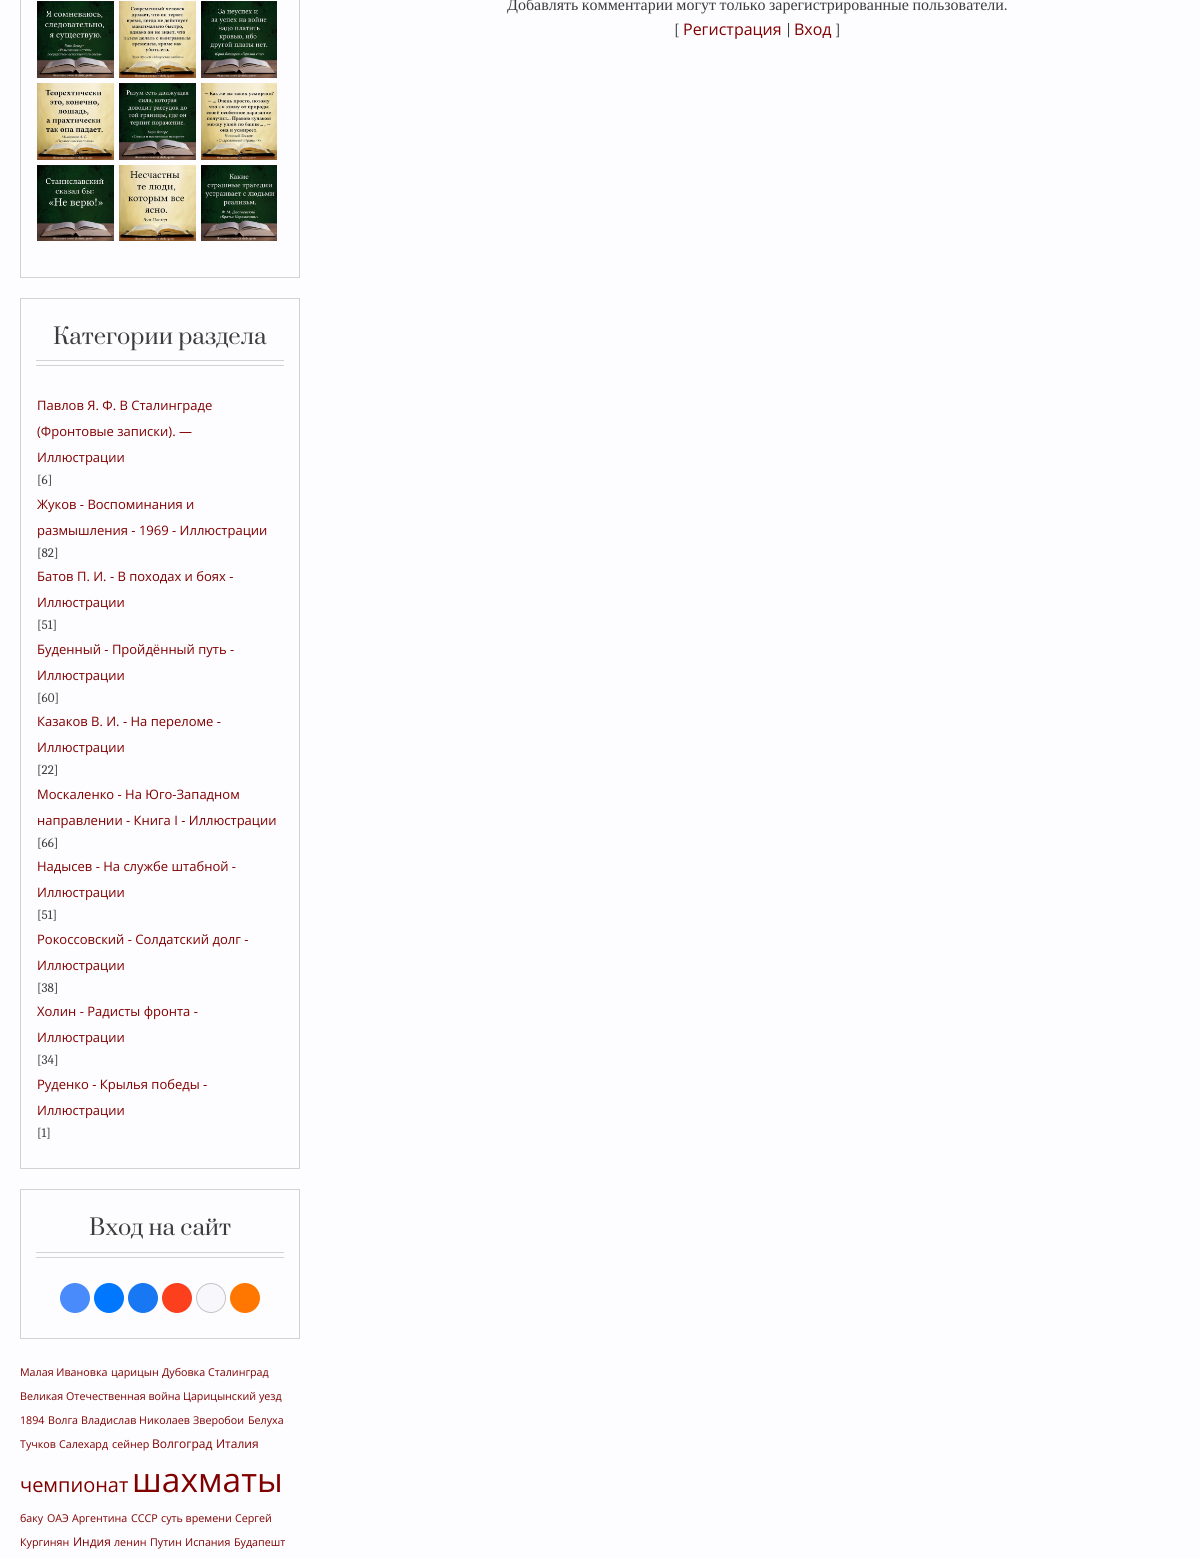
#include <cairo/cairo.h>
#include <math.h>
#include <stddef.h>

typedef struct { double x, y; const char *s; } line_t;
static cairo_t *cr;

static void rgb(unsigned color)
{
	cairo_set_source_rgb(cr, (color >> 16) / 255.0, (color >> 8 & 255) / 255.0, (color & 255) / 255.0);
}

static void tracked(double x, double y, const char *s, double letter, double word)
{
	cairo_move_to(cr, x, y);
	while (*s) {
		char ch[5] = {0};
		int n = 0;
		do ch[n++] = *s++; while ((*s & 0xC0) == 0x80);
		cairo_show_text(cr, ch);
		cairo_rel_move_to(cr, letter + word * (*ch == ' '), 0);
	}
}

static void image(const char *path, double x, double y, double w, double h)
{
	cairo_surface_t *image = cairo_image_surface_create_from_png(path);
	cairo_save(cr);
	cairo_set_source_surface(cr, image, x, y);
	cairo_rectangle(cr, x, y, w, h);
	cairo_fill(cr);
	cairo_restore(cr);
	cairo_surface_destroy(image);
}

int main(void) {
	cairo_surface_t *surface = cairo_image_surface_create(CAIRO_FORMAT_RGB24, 1200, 1559);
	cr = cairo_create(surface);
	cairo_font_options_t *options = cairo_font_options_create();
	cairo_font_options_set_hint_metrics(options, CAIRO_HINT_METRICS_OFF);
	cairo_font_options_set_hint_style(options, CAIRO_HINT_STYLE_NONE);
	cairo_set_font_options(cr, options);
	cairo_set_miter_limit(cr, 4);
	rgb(0xfdfdff);
	cairo_paint(cr);
	cairo_rectangle(cr, 20.5, -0.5, 279, 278);
	rgb(0xd3d3d3);
	cairo_set_line_width(cr, 1);
	cairo_stroke(cr);
	image("img/1.png", 37, 1, 240, 240);
	cairo_rectangle(cr, 20.5, 298.5, 279, 870);
	cairo_stroke(cr);
	cairo_rectangle(cr, 36, 365, 248, 1);
	cairo_fill(cr);
	cairo_rectangle(cr, 36, 360, 248, 1);
	cairo_fill(cr);
	cairo_rectangle(cr, 20.5, 1189.5, 279, 149);
	cairo_stroke(cr);
	cairo_rectangle(cr, 36, 1257, 248, 1);
	cairo_fill(cr);
	cairo_rectangle(cr, 36, 1252, 248, 1);
	cairo_fill(cr);
	rgb(0x498bfa);
	cairo_arc(cr, 75, 1298, 15, 0, 2 * M_PI);
	cairo_fill(cr);
	rgb(0x0077ff);
	cairo_arc(cr, 109, 1298, 15, 0, 2 * M_PI);
	cairo_fill(cr);
	rgb(0x1877f2);
	cairo_arc(cr, 143, 1298, 15, 0, 2 * M_PI);
	cairo_fill(cr);
	rgb(0xfc3f1d);
	cairo_arc(cr, 177, 1298, 15, 0, 2 * M_PI);
	cairo_fill(cr);
	rgb(0xf8f8fc);
	cairo_arc(cr, 211, 1298, 14.5, 0, 2 * M_PI);
	cairo_fill_preserve(cr);
	rgb(0xc4c4c4);
	cairo_stroke(cr);
	rgb(0xff7700);
	cairo_arc(cr, 245, 1298, 15, 0, 2 * M_PI);
	cairo_fill(cr);
	cairo_select_font_face(cr, "Liberation Serif", CAIRO_FONT_SLANT_NORMAL, CAIRO_FONT_WEIGHT_NORMAL);
	cairo_set_font_size(cr, 16);
	rgb(0x3c3c3c);
	tracked(507, 10, "Добавлять комментарии могут только зарегистрированные пользователи", 0, -0.5);
	cairo_select_font_face(cr, "Caladea", CAIRO_FONT_SLANT_NORMAL, CAIRO_FONT_WEIGHT_NORMAL);
	cairo_move_to(cr, 1004, 10);
	cairo_show_text(cr, ".");
	cairo_move_to(cr, 674, 35);
	cairo_show_text(cr, "[");
	cairo_select_font_face(cr, "Open Sans", CAIRO_FONT_SLANT_NORMAL, CAIRO_FONT_WEIGHT_NORMAL);
	rgb(0x800000);
	cairo_move_to(cr, 683, 35);
	cairo_show_text(cr, "Регистрация");
	cairo_select_font_face(cr, "Caladea", CAIRO_FONT_SLANT_NORMAL, CAIRO_FONT_WEIGHT_NORMAL);
	rgb(0x3c3c3c);
	cairo_move_to(cr, 786, 35);
	cairo_show_text(cr, "|");
	cairo_select_font_face(cr, "Open Sans", CAIRO_FONT_SLANT_NORMAL, CAIRO_FONT_WEIGHT_NORMAL);
	rgb(0x800000);
	cairo_move_to(cr, 794, 35);
	cairo_show_text(cr, "Вход");
	cairo_select_font_face(cr, "Caladea", CAIRO_FONT_SLANT_NORMAL, CAIRO_FONT_WEIGHT_NORMAL);
	rgb(0x3c3c3c);
	cairo_move_to(cr, 835, 35);
	cairo_show_text(cr, "]");
	cairo_select_font_face(cr, "Prata", CAIRO_FONT_SLANT_NORMAL, CAIRO_FONT_WEIGHT_NORMAL);
	cairo_set_font_size(cr, 22);
	cairo_move_to(cr, 53, 344);
	cairo_show_text(cr, "Категории раздела");
	cairo_select_font_face(cr, "Open Sans", CAIRO_FONT_SLANT_NORMAL, CAIRO_FONT_WEIGHT_NORMAL);
	cairo_set_font_size(cr, 13);
	rgb(0x800000);
	{
		static const line_t items[] = {
			{37, 410, "Павлов Я. Ф. В Сталинграде"},
			{37, 436, "(Фронтовые записки). —"},
			{37, 462, "Иллюстрации"},
		};
		for (size_t i = 0; i < sizeof items / sizeof *items; i++) {
			cairo_move_to(cr, items[i].x, items[i].y);
			cairo_show_text(cr, items[i].s);
		}
	}
	cairo_select_font_face(cr, "Caladea", CAIRO_FONT_SLANT_NORMAL, CAIRO_FONT_WEIGHT_NORMAL);
	rgb(0x3c3c3c);
	cairo_move_to(cr, 37, 484);
	cairo_show_text(cr, "[6]");
	cairo_select_font_face(cr, "Open Sans", CAIRO_FONT_SLANT_NORMAL, CAIRO_FONT_WEIGHT_NORMAL);
	rgb(0x800000);
	cairo_move_to(cr, 37, 509);
	cairo_show_text(cr, "Жуков - Воспоминания и");
	cairo_move_to(cr, 37, 535);
	cairo_show_text(cr, "размышления - 1969 - Иллюстрации");
	cairo_select_font_face(cr, "Caladea", CAIRO_FONT_SLANT_NORMAL, CAIRO_FONT_WEIGHT_NORMAL);
	rgb(0x3c3c3c);
	cairo_move_to(cr, 37, 557);
	cairo_show_text(cr, "[82]");
	cairo_select_font_face(cr, "Open Sans", CAIRO_FONT_SLANT_NORMAL, CAIRO_FONT_WEIGHT_NORMAL);
	rgb(0x800000);
	cairo_move_to(cr, 37, 581);
	cairo_show_text(cr, "Батов П. И. - В походах и боях -");
	cairo_move_to(cr, 37, 607);
	cairo_show_text(cr, "Иллюстрации");
	cairo_select_font_face(cr, "Caladea", CAIRO_FONT_SLANT_NORMAL, CAIRO_FONT_WEIGHT_NORMAL);
	rgb(0x3c3c3c);
	cairo_move_to(cr, 37, 629);
	cairo_show_text(cr, "[51]");
	cairo_select_font_face(cr, "Open Sans", CAIRO_FONT_SLANT_NORMAL, CAIRO_FONT_WEIGHT_NORMAL);
	rgb(0x800000);
	cairo_move_to(cr, 37, 654);
	cairo_show_text(cr, "Буденный - Пройдённый путь -");
	cairo_move_to(cr, 37, 680);
	cairo_show_text(cr, "Иллюстрации");
	cairo_select_font_face(cr, "Caladea", CAIRO_FONT_SLANT_NORMAL, CAIRO_FONT_WEIGHT_NORMAL);
	rgb(0x3c3c3c);
	cairo_move_to(cr, 37, 702);
	cairo_show_text(cr, "[60]");
	cairo_select_font_face(cr, "Open Sans", CAIRO_FONT_SLANT_NORMAL, CAIRO_FONT_WEIGHT_NORMAL);
	rgb(0x800000);
	cairo_move_to(cr, 37, 726);
	cairo_show_text(cr, "Казаков В. И. - На переломе -");
	cairo_move_to(cr, 37, 752);
	cairo_show_text(cr, "Иллюстрации");
	cairo_select_font_face(cr, "Caladea", CAIRO_FONT_SLANT_NORMAL, CAIRO_FONT_WEIGHT_NORMAL);
	rgb(0x3c3c3c);
	cairo_move_to(cr, 37, 774);
	cairo_show_text(cr, "[22]");
	cairo_select_font_face(cr, "Open Sans", CAIRO_FONT_SLANT_NORMAL, CAIRO_FONT_WEIGHT_NORMAL);
	rgb(0x800000);
	cairo_move_to(cr, 37, 799);
	cairo_show_text(cr, "Москаленко - На Юго-Западном");
	cairo_move_to(cr, 37, 825);
	cairo_show_text(cr, "направлении - Книга I - Иллюстрации");
	cairo_select_font_face(cr, "Caladea", CAIRO_FONT_SLANT_NORMAL, CAIRO_FONT_WEIGHT_NORMAL);
	rgb(0x3c3c3c);
	cairo_move_to(cr, 37, 847);
	cairo_show_text(cr, "[66]");
	cairo_select_font_face(cr, "Open Sans", CAIRO_FONT_SLANT_NORMAL, CAIRO_FONT_WEIGHT_NORMAL);
	rgb(0x800000);
	cairo_move_to(cr, 37, 871);
	cairo_show_text(cr, "Надысев - На службе штабной -");
	cairo_move_to(cr, 37, 897);
	cairo_show_text(cr, "Иллюстрации");
	cairo_select_font_face(cr, "Caladea", CAIRO_FONT_SLANT_NORMAL, CAIRO_FONT_WEIGHT_NORMAL);
	rgb(0x3c3c3c);
	cairo_move_to(cr, 37, 919);
	cairo_show_text(cr, "[51]");
	cairo_select_font_face(cr, "Open Sans", CAIRO_FONT_SLANT_NORMAL, CAIRO_FONT_WEIGHT_NORMAL);
	rgb(0x800000);
	cairo_move_to(cr, 37, 944);
	cairo_show_text(cr, "Рокоссовский - Солдатский долг -");
	cairo_move_to(cr, 37, 970);
	cairo_show_text(cr, "Иллюстрации");
	cairo_select_font_face(cr, "Caladea", CAIRO_FONT_SLANT_NORMAL, CAIRO_FONT_WEIGHT_NORMAL);
	rgb(0x3c3c3c);
	cairo_move_to(cr, 37, 992);
	cairo_show_text(cr, "[38]");
	cairo_select_font_face(cr, "Open Sans", CAIRO_FONT_SLANT_NORMAL, CAIRO_FONT_WEIGHT_NORMAL);
	rgb(0x800000);
	cairo_move_to(cr, 37, 1016);
	cairo_show_text(cr, "Холин - Радисты фронта -");
	cairo_move_to(cr, 37, 1042);
	cairo_show_text(cr, "Иллюстрации");
	cairo_select_font_face(cr, "Caladea", CAIRO_FONT_SLANT_NORMAL, CAIRO_FONT_WEIGHT_NORMAL);
	rgb(0x3c3c3c);
	cairo_move_to(cr, 37, 1064);
	cairo_show_text(cr, "[34]");
	cairo_select_font_face(cr, "Open Sans", CAIRO_FONT_SLANT_NORMAL, CAIRO_FONT_WEIGHT_NORMAL);
	rgb(0x800000);
	cairo_move_to(cr, 37, 1089);
	cairo_show_text(cr, "Руденко - Крылья победы -");
	cairo_move_to(cr, 37, 1115);
	cairo_show_text(cr, "Иллюстрации");
	cairo_select_font_face(cr, "Caladea", CAIRO_FONT_SLANT_NORMAL, CAIRO_FONT_WEIGHT_NORMAL);
	rgb(0x3c3c3c);
	cairo_move_to(cr, 37, 1137);
	cairo_show_text(cr, "[1]");
	cairo_select_font_face(cr, "Prata", CAIRO_FONT_SLANT_NORMAL, CAIRO_FONT_WEIGHT_NORMAL);
	cairo_set_font_size(cr, 22);
	cairo_move_to(cr, 89, 1235);
	cairo_show_text(cr, "Вход на сайт");
	cairo_select_font_face(cr, "Open Sans", CAIRO_FONT_SLANT_NORMAL, CAIRO_FONT_WEIGHT_NORMAL);
	cairo_set_font_size(cr, 10.7);
	rgb(0x800000);
	{
		static const line_t items[] = {
			{20, 1376, "Малая Ивановка"},
			{111, 1376, "царицын"},
			{162, 1376, "Дубовка"},
			{208, 1376, "Сталинград"},
			{20, 1400, "Великая Отечественная война"},
			{183, 1400, "Царицынский уезд"},
			{20, 1424, "1894"},
			{48, 1424, "Волга"},
			{81, 1424, "Владислав Николаев"},
			{193, 1424, "Зверобои"},
			{248, 1424, "Белуха"},
			{20, 1448, "Тучков"},
			{59, 1448, "Салехард"},
			{112, 1448, "сейнер"},
		};
		for (size_t i = 0; i < sizeof items / sizeof *items; i++) {
			cairo_move_to(cr, items[i].x, items[i].y);
			cairo_show_text(cr, items[i].s);
		}
	}
	cairo_set_font_size(cr, 12);
	cairo_move_to(cr, 152, 1448);
	cairo_show_text(cr, "Волгоград");
	cairo_move_to(cr, 216, 1448);
	cairo_show_text(cr, "Италия");
	cairo_set_font_size(cr, 20);
	cairo_move_to(cr, 20, 1492);
	cairo_show_text(cr, "чемпионат");
	cairo_set_font_size(cr, 33.5);
	cairo_move_to(cr, 132, 1492);
	cairo_show_text(cr, "шахматы");
	cairo_set_font_size(cr, 10.7);
	{
		static const line_t items[] = {
			{20, 1522, "баку"},
			{47, 1522, "ОАЭ"},
			{72, 1522, "Аргентина"},
			{131, 1522, "СССР"},
			{161, 1522, "суть времени"},
			{235, 1522, "Сергей"},
			{20, 1546, "Кургинян"},
		};
		for (size_t i = 0; i < sizeof items / sizeof *items; i++) {
			cairo_move_to(cr, items[i].x, items[i].y);
			cairo_show_text(cr, items[i].s);
		}
	}
	cairo_set_font_size(cr, 12);
	cairo_move_to(cr, 73, 1546);
	cairo_show_text(cr, "Индия");
	cairo_set_font_size(cr, 10.7);
	{
		static const line_t items[] = {
			{114, 1546, "ленин"},
			{150, 1546, "Путин"},
			{185, 1546, "Испания"},
			{234, 1546, "Будапешт"},
		};
		for (size_t i = 0; i < sizeof items / sizeof *items; i++) {
			cairo_move_to(cr, items[i].x, items[i].y);
			cairo_show_text(cr, items[i].s);
		}
	}
	cairo_surface_write_to_png(surface, "page.png");
	cairo_font_options_destroy(options);
	cairo_destroy(cr);
	cairo_surface_destroy(surface);
	return 0;
}
